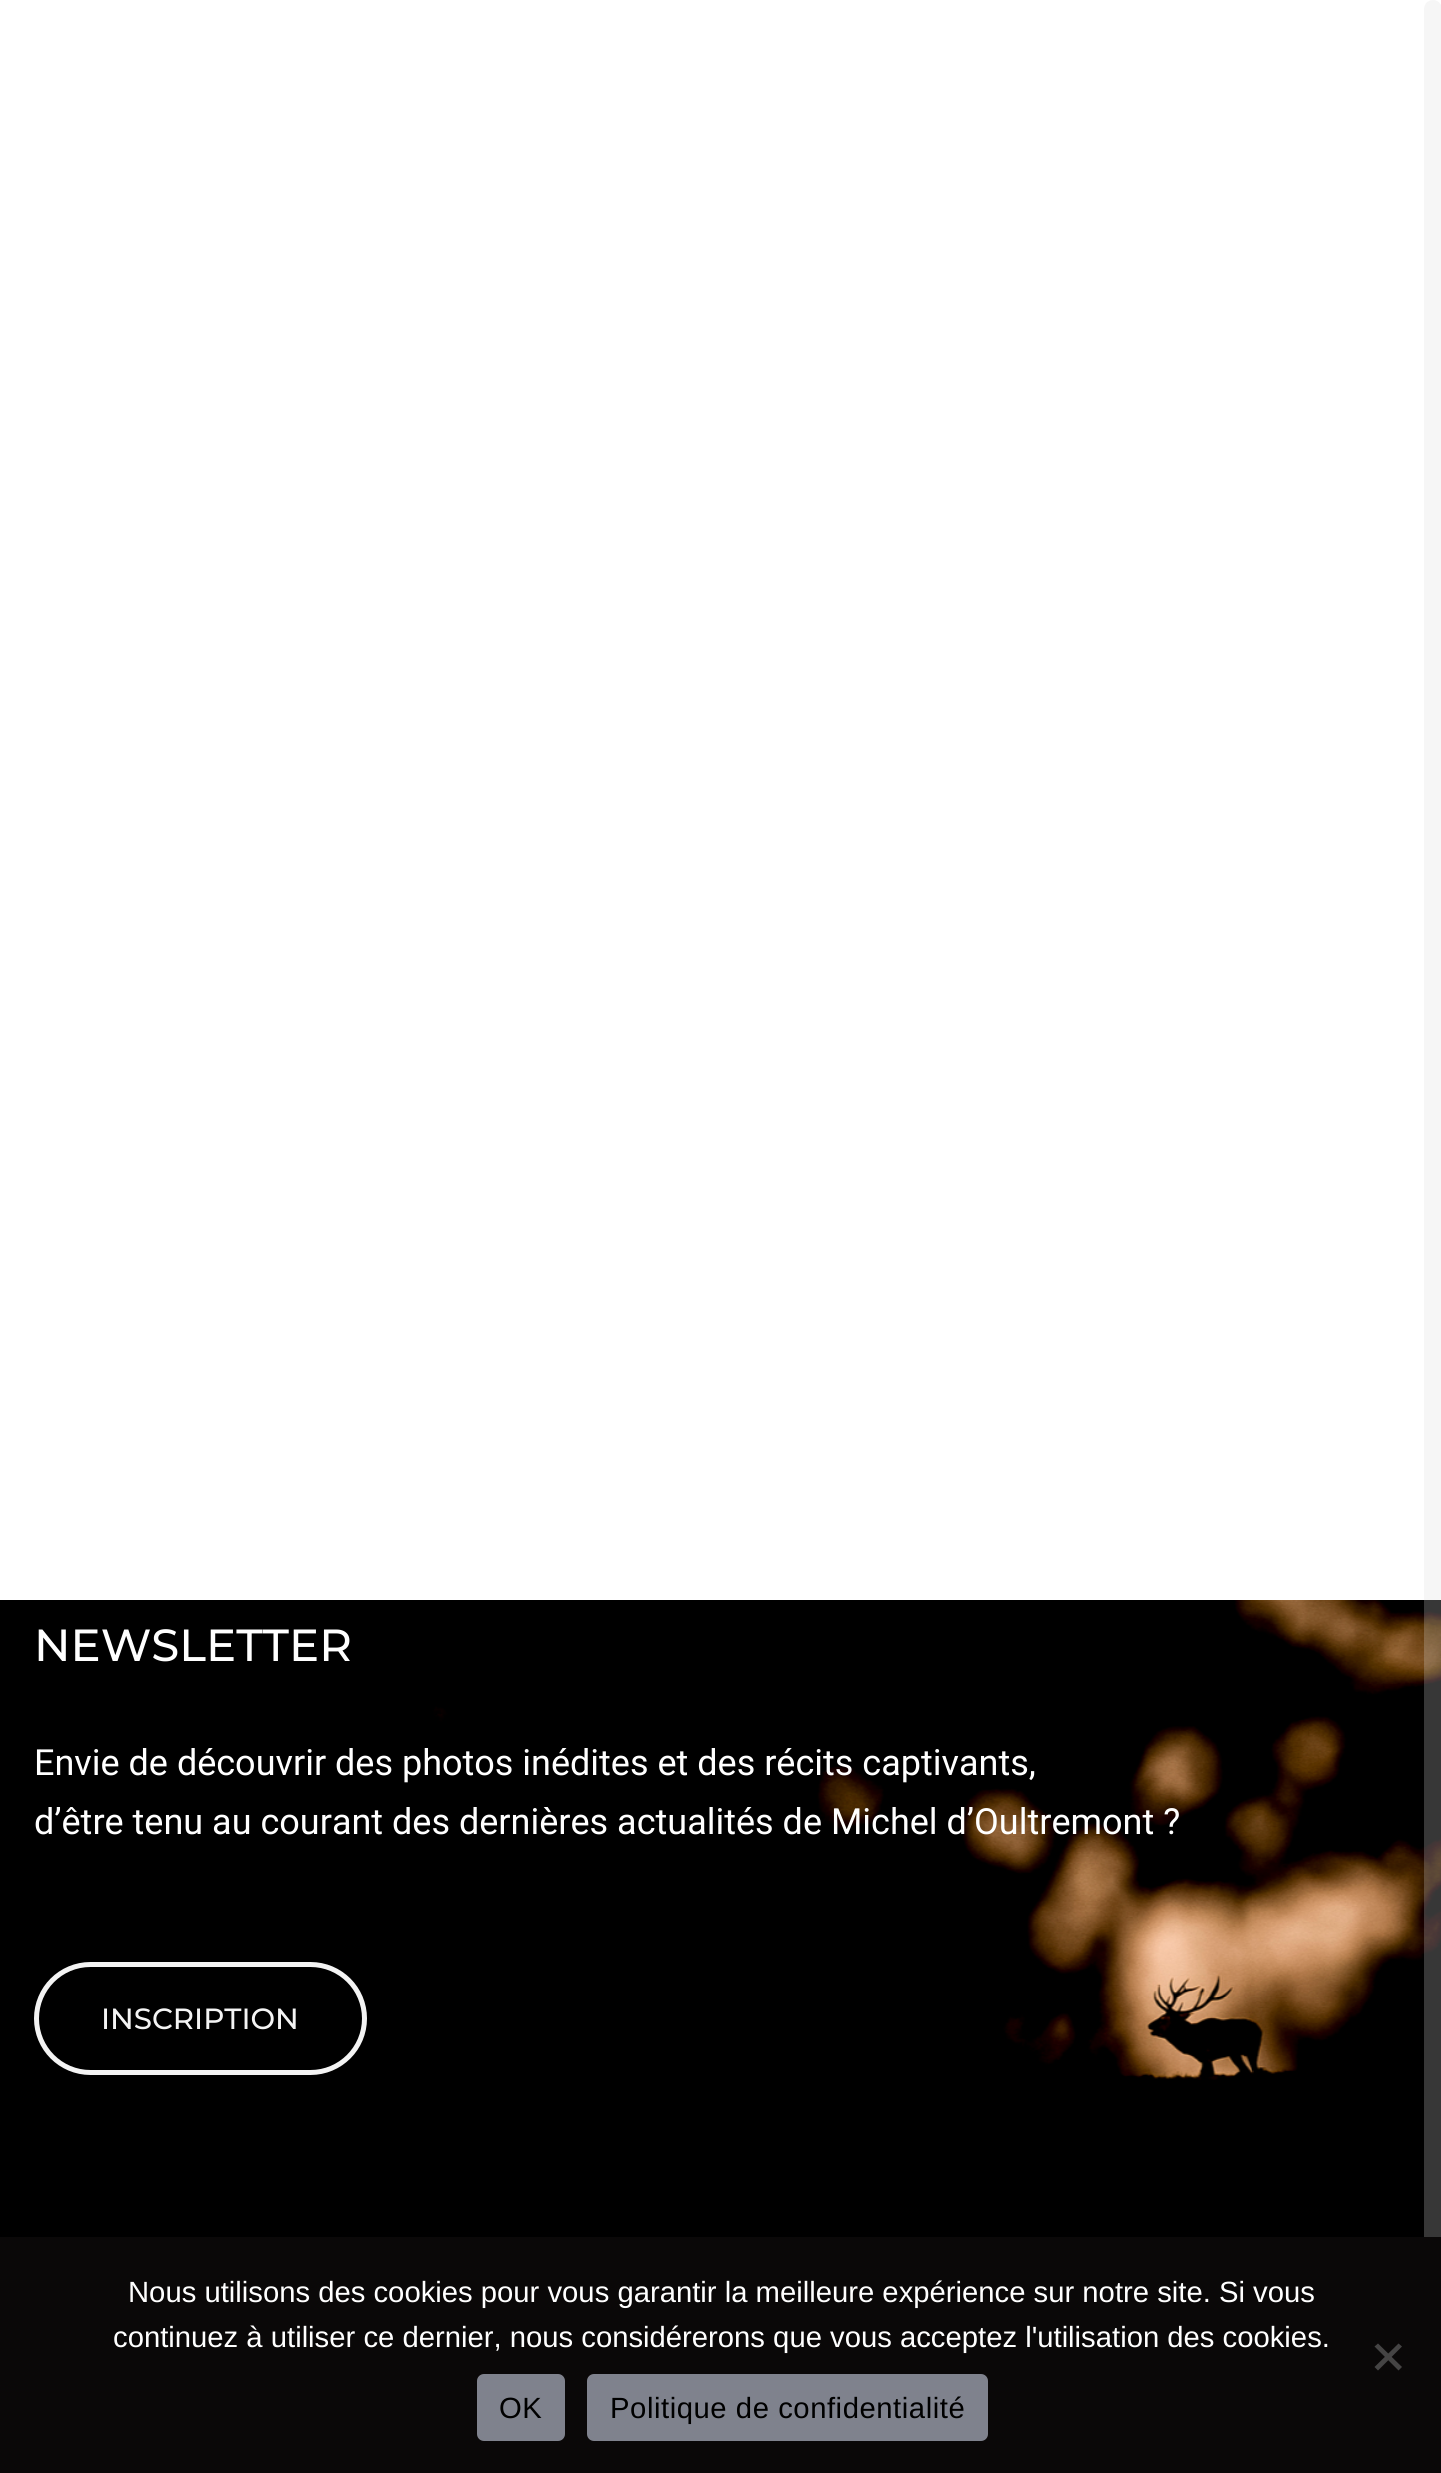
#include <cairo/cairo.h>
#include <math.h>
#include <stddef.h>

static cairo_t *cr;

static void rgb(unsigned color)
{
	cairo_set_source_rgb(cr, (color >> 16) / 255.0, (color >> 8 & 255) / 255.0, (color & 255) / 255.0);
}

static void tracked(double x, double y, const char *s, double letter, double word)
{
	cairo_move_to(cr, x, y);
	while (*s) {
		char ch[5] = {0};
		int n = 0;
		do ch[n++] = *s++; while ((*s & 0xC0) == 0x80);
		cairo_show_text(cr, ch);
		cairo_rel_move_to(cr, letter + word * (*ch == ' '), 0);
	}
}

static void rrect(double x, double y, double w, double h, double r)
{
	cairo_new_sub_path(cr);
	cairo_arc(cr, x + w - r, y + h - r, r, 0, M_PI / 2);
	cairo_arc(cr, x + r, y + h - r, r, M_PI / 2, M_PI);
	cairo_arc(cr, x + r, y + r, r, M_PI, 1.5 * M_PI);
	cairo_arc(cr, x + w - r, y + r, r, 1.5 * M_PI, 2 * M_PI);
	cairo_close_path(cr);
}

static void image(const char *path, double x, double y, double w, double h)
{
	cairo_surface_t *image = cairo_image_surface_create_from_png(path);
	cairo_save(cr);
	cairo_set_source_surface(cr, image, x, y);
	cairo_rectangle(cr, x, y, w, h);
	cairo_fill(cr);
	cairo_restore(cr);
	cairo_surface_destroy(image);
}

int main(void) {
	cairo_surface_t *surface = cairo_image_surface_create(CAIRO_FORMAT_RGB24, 1441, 2473);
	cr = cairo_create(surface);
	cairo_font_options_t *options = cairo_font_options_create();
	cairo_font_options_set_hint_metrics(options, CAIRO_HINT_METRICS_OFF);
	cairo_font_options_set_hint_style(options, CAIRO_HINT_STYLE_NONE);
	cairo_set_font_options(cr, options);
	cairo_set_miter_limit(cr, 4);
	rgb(0xffffff);
	cairo_paint(cr);
	image("img/1.png", 0, 1600, 1441, 637);
	rrect(36.5, 1964.5, 328, 108, 54);
	rgb(0xf4f4f4);
	cairo_set_line_width(cr, 5);
	cairo_stroke(cr);
	cairo_set_source_rgba(cr, 0.867, 0.867, 0.867, 0.25);
	rrect(1424, 0, 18, 2435, 9);
	cairo_fill(cr);
	rgb(0x0a0808);
	cairo_rectangle(cr, 0, 2237, 1441, 236);
	cairo_fill(cr);
	rgb(0x454444);
	cairo_new_path(cr);
	cairo_move_to(cr, 1398.5, 2343.5);
	cairo_line_to(cr, 1402, 2346.5);
	cairo_line_to(cr, 1378, 2370.5);
	cairo_line_to(cr, 1374.5, 2367);
	cairo_close_path(cr);
	cairo_fill(cr);
	cairo_new_path(cr);
	cairo_move_to(cr, 1374.5, 2346.5);
	cairo_line_to(cr, 1378, 2343.5);
	cairo_line_to(cr, 1402, 2367);
	cairo_line_to(cr, 1398.5, 2370.5);
	cairo_close_path(cr);
	cairo_fill(cr);
	rgb(0x7f828d);
	rrect(477, 2374, 88, 67, 7);
	cairo_fill(cr);
	rrect(587, 2374, 401, 67, 7);
	cairo_fill(cr);
	cairo_select_font_face(cr, "Montserrat Medium", CAIRO_FONT_SLANT_NORMAL, CAIRO_FONT_WEIGHT_NORMAL);
	cairo_set_font_size(cr, 45);
	rgb(0xffffff);
	cairo_move_to(cr, 34, 1661);
	cairo_show_text(cr, "NEWSLETTER");
	cairo_select_font_face(cr, "Roboto", CAIRO_FONT_SLANT_NORMAL, CAIRO_FONT_WEIGHT_NORMAL);
	cairo_set_font_size(cr, 36);
	cairo_move_to(cr, 34, 1775);
	cairo_show_text(cr, "Envie de découvrir des photos inédites et des récits captivants,");
	cairo_move_to(cr, 34, 1834);
	cairo_show_text(cr, "d’être tenu au courant des dernières actualités de Michel d’Oultremont ?");
	cairo_select_font_face(cr, "Montserrat Medium", CAIRO_FONT_SLANT_NORMAL, CAIRO_FONT_WEIGHT_NORMAL);
	cairo_set_font_size(cr, 29.25);
	rgb(0xf4f4f4);
	cairo_move_to(cr, 101, 2029);
	cairo_show_text(cr, "INSCRIPTION");
	cairo_select_font_face(cr, "Liberation Sans", CAIRO_FONT_SLANT_NORMAL, CAIRO_FONT_WEIGHT_NORMAL);
	rgb(0xffffff);
	cairo_move_to(cr, 128, 2302);
	cairo_show_text(cr, "Nous utilisons des cookies pour vous garantir la meilleure expérience sur notre site. Si vous");
	cairo_move_to(cr, 113, 2347);
	cairo_show_text(cr, "continuez à utiliser ce dernier, nous considérerons que vous acceptez l'utilisation des cookies.");
	rgb(0x000000);
	tracked(499, 2418, "OK", 0.55, 0);
	tracked(610, 2418, "Politique de confidentialité", 0.55, 0);
	cairo_surface_write_to_png(surface, "page.png");
	cairo_font_options_destroy(options);
	cairo_destroy(cr);
	cairo_surface_destroy(surface);
	return 0;
}
